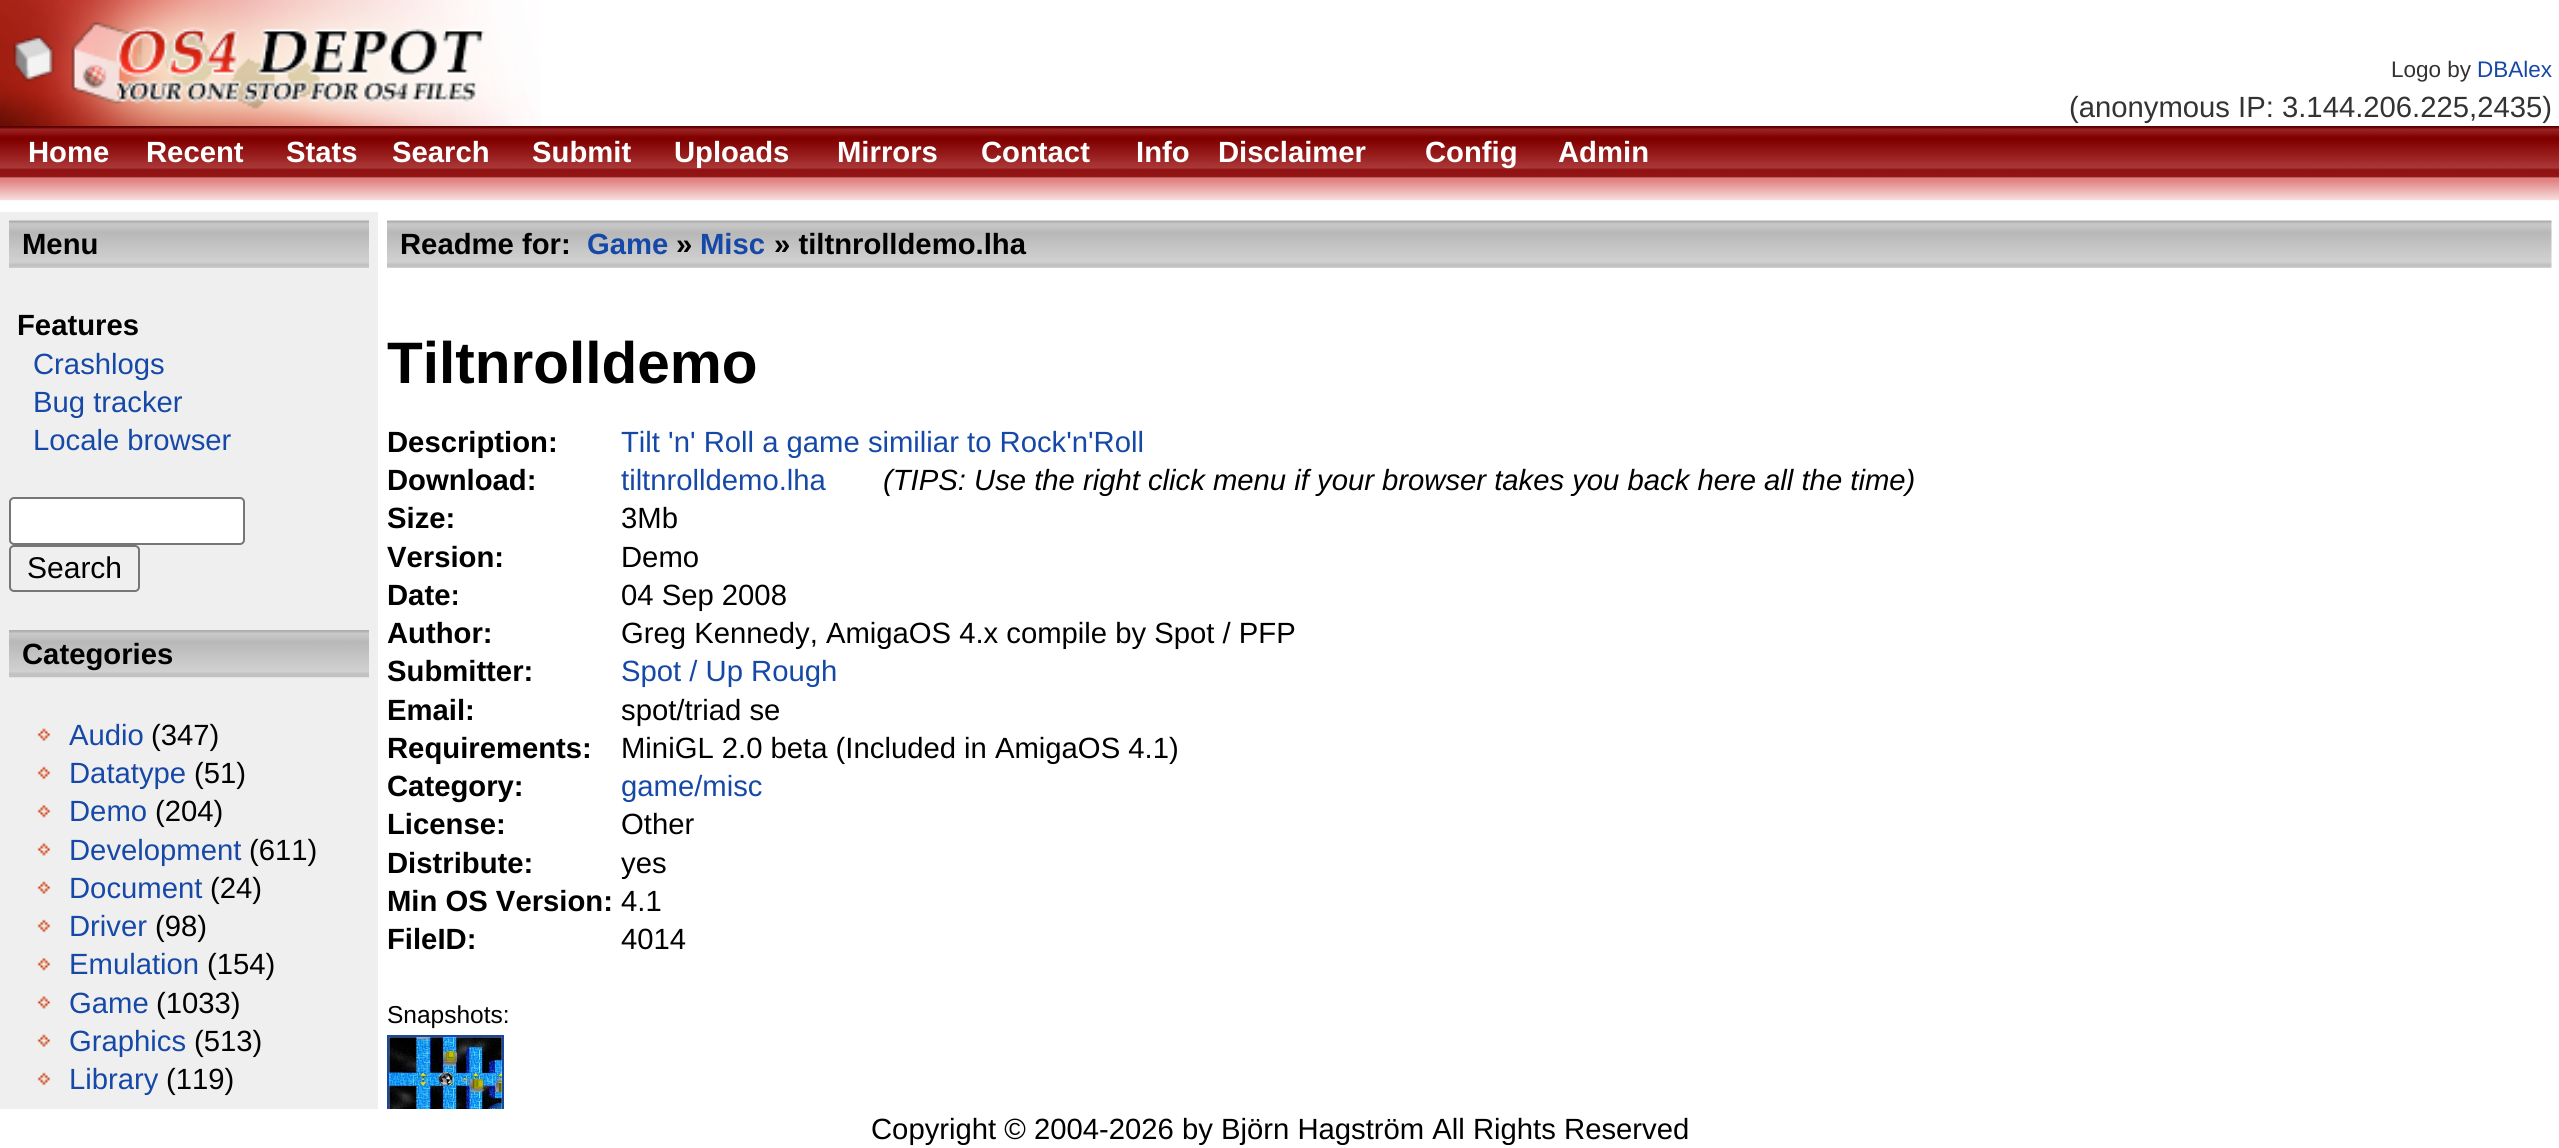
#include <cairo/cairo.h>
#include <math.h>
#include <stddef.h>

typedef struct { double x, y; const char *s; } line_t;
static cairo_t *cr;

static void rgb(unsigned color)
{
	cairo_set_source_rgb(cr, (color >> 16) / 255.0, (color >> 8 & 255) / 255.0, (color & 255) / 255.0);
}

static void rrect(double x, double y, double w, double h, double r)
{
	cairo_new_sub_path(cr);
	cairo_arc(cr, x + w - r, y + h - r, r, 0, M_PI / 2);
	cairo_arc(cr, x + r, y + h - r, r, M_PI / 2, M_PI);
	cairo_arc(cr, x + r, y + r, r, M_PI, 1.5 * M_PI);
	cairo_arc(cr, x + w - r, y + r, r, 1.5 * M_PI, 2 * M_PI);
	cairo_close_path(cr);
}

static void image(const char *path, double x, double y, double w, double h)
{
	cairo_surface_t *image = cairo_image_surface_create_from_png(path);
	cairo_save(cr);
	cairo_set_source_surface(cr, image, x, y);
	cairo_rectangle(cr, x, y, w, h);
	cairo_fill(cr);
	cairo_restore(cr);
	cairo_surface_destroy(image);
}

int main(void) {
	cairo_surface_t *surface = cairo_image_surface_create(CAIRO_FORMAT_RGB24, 2559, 1148);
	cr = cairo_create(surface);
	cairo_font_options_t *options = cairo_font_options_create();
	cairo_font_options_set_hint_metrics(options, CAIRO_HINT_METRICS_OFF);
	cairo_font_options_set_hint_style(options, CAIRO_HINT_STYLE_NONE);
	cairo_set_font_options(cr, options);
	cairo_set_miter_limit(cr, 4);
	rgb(0xffffff);
	cairo_paint(cr);
	image("img/1.png", 0, 0, 541, 126);
	image("img/2.png", 0, 126, 2559, 52);
	image("img/3.png", 0, 177, 2559, 24);
	rgb(0xefefef);
	cairo_rectangle(cr, 0, 212, 378, 897);
	cairo_fill(cr);
	image("img/4.png", 9, 220, 360, 48);
	rgb(0xffffff);
	rrect(10, 498, 234, 46, 4);
	cairo_fill_preserve(cr);
	rgb(0x767676);
	cairo_stroke(cr);
	rrect(10, 546, 129, 45, 4);
	cairo_stroke(cr);
	image("img/5.png", 9, 630, 360, 48);
	image("img/6.png", 37, 728, 14, 13);
	image("img/7.png", 37, 766, 14, 14);
	image("img/8.png", 37, 805, 14, 13);
	image("img/9.png", 37, 843, 14, 13);
	image("img/6.png", 37, 881, 14, 13);
	image("img/7.png", 37, 919, 14, 14);
	image("img/8.png", 37, 958, 14, 13);
	image("img/10.png", 37, 996, 14, 13);
	image("img/6.png", 37, 1034, 14, 13);
	image("img/7.png", 37, 1072, 14, 14);
	image("img/11.png", 387, 220, 2165, 48);
	cairo_rectangle(cr, 388, 1036, 115, 86);
	rgb(0x1649a7);
	cairo_stroke(cr);
	image("img/12.png", 389, 1037, 113, 72);
	rgb(0xffffff);
	cairo_rectangle(cr, 387, 1109, 117, 14);
	cairo_fill(cr);
	cairo_select_font_face(cr, "Liberation Sans", CAIRO_FONT_SLANT_NORMAL, CAIRO_FONT_WEIGHT_NORMAL);
	cairo_set_font_size(cr, 22.5);
	rgb(0x333333);
	cairo_move_to(cr, 2391, 77);
	cairo_show_text(cr, "Logo by");
	rgb(0x1649a7);
	cairo_move_to(cr, 2477, 77);
	cairo_show_text(cr, "DBAlex");
	cairo_set_font_size(cr, 29.25);
	rgb(0x333333);
	cairo_move_to(cr, 2069, 117);
	cairo_show_text(cr, "(anonymous IP: 3.144.206.225,2435)");
	cairo_select_font_face(cr, "Liberation Sans", CAIRO_FONT_SLANT_NORMAL, CAIRO_FONT_WEIGHT_BOLD);
	rgb(0xffffff);
	{
		static const line_t items[] = {
			{28, 162, "Home"},
			{146, 162, "Recent"},
			{286, 162, "Stats"},
			{392, 162, "Search"},
			{532, 162, "Submit"},
			{674, 162, "Uploads"},
			{837, 162, "Mirrors"},
			{981, 162, "Contact"},
			{1136, 162, "Info"},
			{1218, 162, "Disclaimer"},
			{1425, 162, "Config"},
			{1558, 162, "Admin"},
		};
		for (size_t i = 0; i < sizeof items / sizeof *items; i++) {
			cairo_move_to(cr, items[i].x, items[i].y);
			cairo_show_text(cr, items[i].s);
		}
	}
	rgb(0x000000);
	cairo_move_to(cr, 22, 254);
	cairo_show_text(cr, "Menu");
	cairo_move_to(cr, 17, 335);
	cairo_show_text(cr, "Features");
	cairo_select_font_face(cr, "Liberation Sans", CAIRO_FONT_SLANT_NORMAL, CAIRO_FONT_WEIGHT_NORMAL);
	rgb(0x1649a7);
	{
		static const line_t items[] = {
			{33, 374, "Crashlogs"},
			{33, 412, "Bug tracker"},
			{33, 450, "Locale browser"},
		};
		for (size_t i = 0; i < sizeof items / sizeof *items; i++) {
			cairo_move_to(cr, items[i].x, items[i].y);
			cairo_show_text(cr, items[i].s);
		}
	}
	cairo_set_font_size(cr, 30);
	rgb(0x000000);
	cairo_move_to(cr, 27, 578);
	cairo_show_text(cr, "Search");
	cairo_select_font_face(cr, "Liberation Sans", CAIRO_FONT_SLANT_NORMAL, CAIRO_FONT_WEIGHT_BOLD);
	cairo_set_font_size(cr, 29.25);
	cairo_move_to(cr, 22, 664);
	cairo_show_text(cr, "Categories");
	cairo_select_font_face(cr, "Liberation Sans", CAIRO_FONT_SLANT_NORMAL, CAIRO_FONT_WEIGHT_NORMAL);
	rgb(0x1649a7);
	cairo_move_to(cr, 69, 745);
	cairo_show_text(cr, "Audio");
	rgb(0x000000);
	cairo_move_to(cr, 151, 745);
	cairo_show_text(cr, "(347)");
	rgb(0x1649a7);
	cairo_move_to(cr, 69, 783);
	cairo_show_text(cr, "Datatype");
	rgb(0x000000);
	cairo_move_to(cr, 194, 783);
	cairo_show_text(cr, "(51)");
	rgb(0x1649a7);
	cairo_move_to(cr, 69, 821);
	cairo_show_text(cr, "Demo");
	rgb(0x000000);
	cairo_move_to(cr, 155, 821);
	cairo_show_text(cr, "(204)");
	rgb(0x1649a7);
	cairo_move_to(cr, 69, 860);
	cairo_show_text(cr, "Development");
	rgb(0x000000);
	cairo_move_to(cr, 249, 860);
	cairo_show_text(cr, "(611)");
	rgb(0x1649a7);
	cairo_move_to(cr, 69, 898);
	cairo_show_text(cr, "Document");
	rgb(0x000000);
	cairo_move_to(cr, 210, 898);
	cairo_show_text(cr, "(24)");
	rgb(0x1649a7);
	cairo_move_to(cr, 69, 936);
	cairo_show_text(cr, "Driver");
	rgb(0x000000);
	cairo_move_to(cr, 155, 936);
	cairo_show_text(cr, "(98)");
	rgb(0x1649a7);
	cairo_move_to(cr, 69, 974);
	cairo_show_text(cr, "Emulation");
	rgb(0x000000);
	cairo_move_to(cr, 207, 974);
	cairo_show_text(cr, "(154)");
	rgb(0x1649a7);
	cairo_move_to(cr, 69, 1013);
	cairo_show_text(cr, "Game");
	rgb(0x000000);
	cairo_move_to(cr, 156, 1013);
	cairo_show_text(cr, "(1033)");
	rgb(0x1649a7);
	cairo_move_to(cr, 69, 1051);
	cairo_show_text(cr, "Graphics");
	rgb(0x000000);
	cairo_move_to(cr, 194, 1051);
	cairo_show_text(cr, "(513)");
	rgb(0x1649a7);
	cairo_move_to(cr, 69, 1089);
	cairo_show_text(cr, "Library");
	rgb(0x000000);
	cairo_move_to(cr, 166, 1089);
	cairo_show_text(cr, "(119)");
	cairo_select_font_face(cr, "Liberation Sans", CAIRO_FONT_SLANT_NORMAL, CAIRO_FONT_WEIGHT_BOLD);
	cairo_move_to(cr, 400, 254);
	cairo_show_text(cr, "Readme for:");
	rgb(0x1649a7);
	cairo_move_to(cr, 587, 254);
	cairo_show_text(cr, "Game");
	rgb(0x000000);
	cairo_move_to(cr, 676, 254);
	cairo_show_text(cr, "»");
	rgb(0x1649a7);
	cairo_move_to(cr, 700, 254);
	cairo_show_text(cr, "Misc");
	rgb(0x000000);
	cairo_move_to(cr, 774, 254);
	cairo_show_text(cr, "» tiltnrolldemo.lha");
	cairo_set_font_size(cr, 58.5);
	cairo_move_to(cr, 387, 383);
	cairo_show_text(cr, "Tiltnrolldemo");
	cairo_set_font_size(cr, 29.25);
	cairo_move_to(cr, 387, 452);
	cairo_show_text(cr, "Description:");
	cairo_select_font_face(cr, "Liberation Sans", CAIRO_FONT_SLANT_NORMAL, CAIRO_FONT_WEIGHT_NORMAL);
	rgb(0x1649a7);
	cairo_move_to(cr, 621, 452);
	cairo_show_text(cr, "Tilt 'n' Roll a game similiar to Rock'n'Roll");
	cairo_select_font_face(cr, "Liberation Sans", CAIRO_FONT_SLANT_NORMAL, CAIRO_FONT_WEIGHT_BOLD);
	rgb(0x000000);
	cairo_move_to(cr, 387, 490);
	cairo_show_text(cr, "Download:");
	cairo_select_font_face(cr, "Liberation Sans", CAIRO_FONT_SLANT_NORMAL, CAIRO_FONT_WEIGHT_NORMAL);
	rgb(0x1649a7);
	cairo_move_to(cr, 621, 490);
	cairo_show_text(cr, "tiltnrolldemo.lha");
	cairo_select_font_face(cr, "Liberation Sans", CAIRO_FONT_SLANT_ITALIC, CAIRO_FONT_WEIGHT_NORMAL);
	rgb(0x000000);
	cairo_move_to(cr, 883, 490);
	cairo_show_text(cr, "(TIPS: Use the right click menu if your browser takes you back here all the time)");
	cairo_select_font_face(cr, "Liberation Sans", CAIRO_FONT_SLANT_NORMAL, CAIRO_FONT_WEIGHT_BOLD);
	cairo_move_to(cr, 387, 528);
	cairo_show_text(cr, "Size:");
	cairo_select_font_face(cr, "Liberation Sans", CAIRO_FONT_SLANT_NORMAL, CAIRO_FONT_WEIGHT_NORMAL);
	cairo_move_to(cr, 621, 528);
	cairo_show_text(cr, "3Mb");
	cairo_select_font_face(cr, "Liberation Sans", CAIRO_FONT_SLANT_NORMAL, CAIRO_FONT_WEIGHT_BOLD);
	cairo_move_to(cr, 387, 567);
	cairo_show_text(cr, "Version:");
	cairo_select_font_face(cr, "Liberation Sans", CAIRO_FONT_SLANT_NORMAL, CAIRO_FONT_WEIGHT_NORMAL);
	cairo_move_to(cr, 621, 567);
	cairo_show_text(cr, "Demo");
	cairo_select_font_face(cr, "Liberation Sans", CAIRO_FONT_SLANT_NORMAL, CAIRO_FONT_WEIGHT_BOLD);
	cairo_move_to(cr, 387, 605);
	cairo_show_text(cr, "Date:");
	cairo_select_font_face(cr, "Liberation Sans", CAIRO_FONT_SLANT_NORMAL, CAIRO_FONT_WEIGHT_NORMAL);
	cairo_move_to(cr, 621, 605);
	cairo_show_text(cr, "04 Sep 2008");
	cairo_select_font_face(cr, "Liberation Sans", CAIRO_FONT_SLANT_NORMAL, CAIRO_FONT_WEIGHT_BOLD);
	cairo_move_to(cr, 387, 643);
	cairo_show_text(cr, "Author:");
	cairo_select_font_face(cr, "Liberation Sans", CAIRO_FONT_SLANT_NORMAL, CAIRO_FONT_WEIGHT_NORMAL);
	cairo_move_to(cr, 621, 643);
	cairo_show_text(cr, "Greg Kennedy, AmigaOS 4.x compile by Spot / PFP");
	cairo_select_font_face(cr, "Liberation Sans", CAIRO_FONT_SLANT_NORMAL, CAIRO_FONT_WEIGHT_BOLD);
	cairo_move_to(cr, 387, 681);
	cairo_show_text(cr, "Submitter:");
	cairo_select_font_face(cr, "Liberation Sans", CAIRO_FONT_SLANT_NORMAL, CAIRO_FONT_WEIGHT_NORMAL);
	rgb(0x1649a7);
	cairo_move_to(cr, 621, 681);
	cairo_show_text(cr, "Spot / Up Rough");
	cairo_select_font_face(cr, "Liberation Sans", CAIRO_FONT_SLANT_NORMAL, CAIRO_FONT_WEIGHT_BOLD);
	rgb(0x000000);
	cairo_move_to(cr, 387, 720);
	cairo_show_text(cr, "Email:");
	cairo_select_font_face(cr, "Liberation Sans", CAIRO_FONT_SLANT_NORMAL, CAIRO_FONT_WEIGHT_NORMAL);
	cairo_move_to(cr, 621, 720);
	cairo_show_text(cr, "spot/triad se");
	cairo_select_font_face(cr, "Liberation Sans", CAIRO_FONT_SLANT_NORMAL, CAIRO_FONT_WEIGHT_BOLD);
	cairo_move_to(cr, 387, 758);
	cairo_show_text(cr, "Requirements:");
	cairo_select_font_face(cr, "Liberation Sans", CAIRO_FONT_SLANT_NORMAL, CAIRO_FONT_WEIGHT_NORMAL);
	cairo_move_to(cr, 621, 758);
	cairo_show_text(cr, "MiniGL 2.0 beta (Included in AmigaOS 4.1)");
	cairo_select_font_face(cr, "Liberation Sans", CAIRO_FONT_SLANT_NORMAL, CAIRO_FONT_WEIGHT_BOLD);
	cairo_move_to(cr, 387, 796);
	cairo_show_text(cr, "Category:");
	cairo_select_font_face(cr, "Liberation Sans", CAIRO_FONT_SLANT_NORMAL, CAIRO_FONT_WEIGHT_NORMAL);
	rgb(0x1649a7);
	cairo_move_to(cr, 621, 796);
	cairo_show_text(cr, "game/misc");
	cairo_select_font_face(cr, "Liberation Sans", CAIRO_FONT_SLANT_NORMAL, CAIRO_FONT_WEIGHT_BOLD);
	rgb(0x000000);
	cairo_move_to(cr, 387, 834);
	cairo_show_text(cr, "License:");
	cairo_select_font_face(cr, "Liberation Sans", CAIRO_FONT_SLANT_NORMAL, CAIRO_FONT_WEIGHT_NORMAL);
	cairo_move_to(cr, 621, 834);
	cairo_show_text(cr, "Other");
	cairo_select_font_face(cr, "Liberation Sans", CAIRO_FONT_SLANT_NORMAL, CAIRO_FONT_WEIGHT_BOLD);
	cairo_move_to(cr, 387, 873);
	cairo_show_text(cr, "Distribute:");
	cairo_select_font_face(cr, "Liberation Sans", CAIRO_FONT_SLANT_NORMAL, CAIRO_FONT_WEIGHT_NORMAL);
	cairo_move_to(cr, 621, 873);
	cairo_show_text(cr, "yes");
	cairo_select_font_face(cr, "Liberation Sans", CAIRO_FONT_SLANT_NORMAL, CAIRO_FONT_WEIGHT_BOLD);
	cairo_move_to(cr, 387, 911);
	cairo_show_text(cr, "Min OS Version:");
	cairo_select_font_face(cr, "Liberation Sans", CAIRO_FONT_SLANT_NORMAL, CAIRO_FONT_WEIGHT_NORMAL);
	cairo_move_to(cr, 621, 911);
	cairo_show_text(cr, "4.1");
	cairo_select_font_face(cr, "Liberation Sans", CAIRO_FONT_SLANT_NORMAL, CAIRO_FONT_WEIGHT_BOLD);
	cairo_move_to(cr, 387, 949);
	cairo_show_text(cr, "FileID:");
	cairo_select_font_face(cr, "Liberation Sans", CAIRO_FONT_SLANT_NORMAL, CAIRO_FONT_WEIGHT_NORMAL);
	cairo_move_to(cr, 621, 949);
	cairo_show_text(cr, "4014");
	cairo_set_font_size(cr, 24.5);
	cairo_move_to(cr, 387, 1023);
	cairo_show_text(cr, "Snapshots:");
	cairo_set_font_size(cr, 29.25);
	cairo_move_to(cr, 871, 1139);
	cairo_show_text(cr, "Copyright © 2004-2026 by Björn Hagström All Rights Reserved");
	cairo_surface_write_to_png(surface, "page.png");
	cairo_font_options_destroy(options);
	cairo_destroy(cr);
	cairo_surface_destroy(surface);
	return 0;
}
